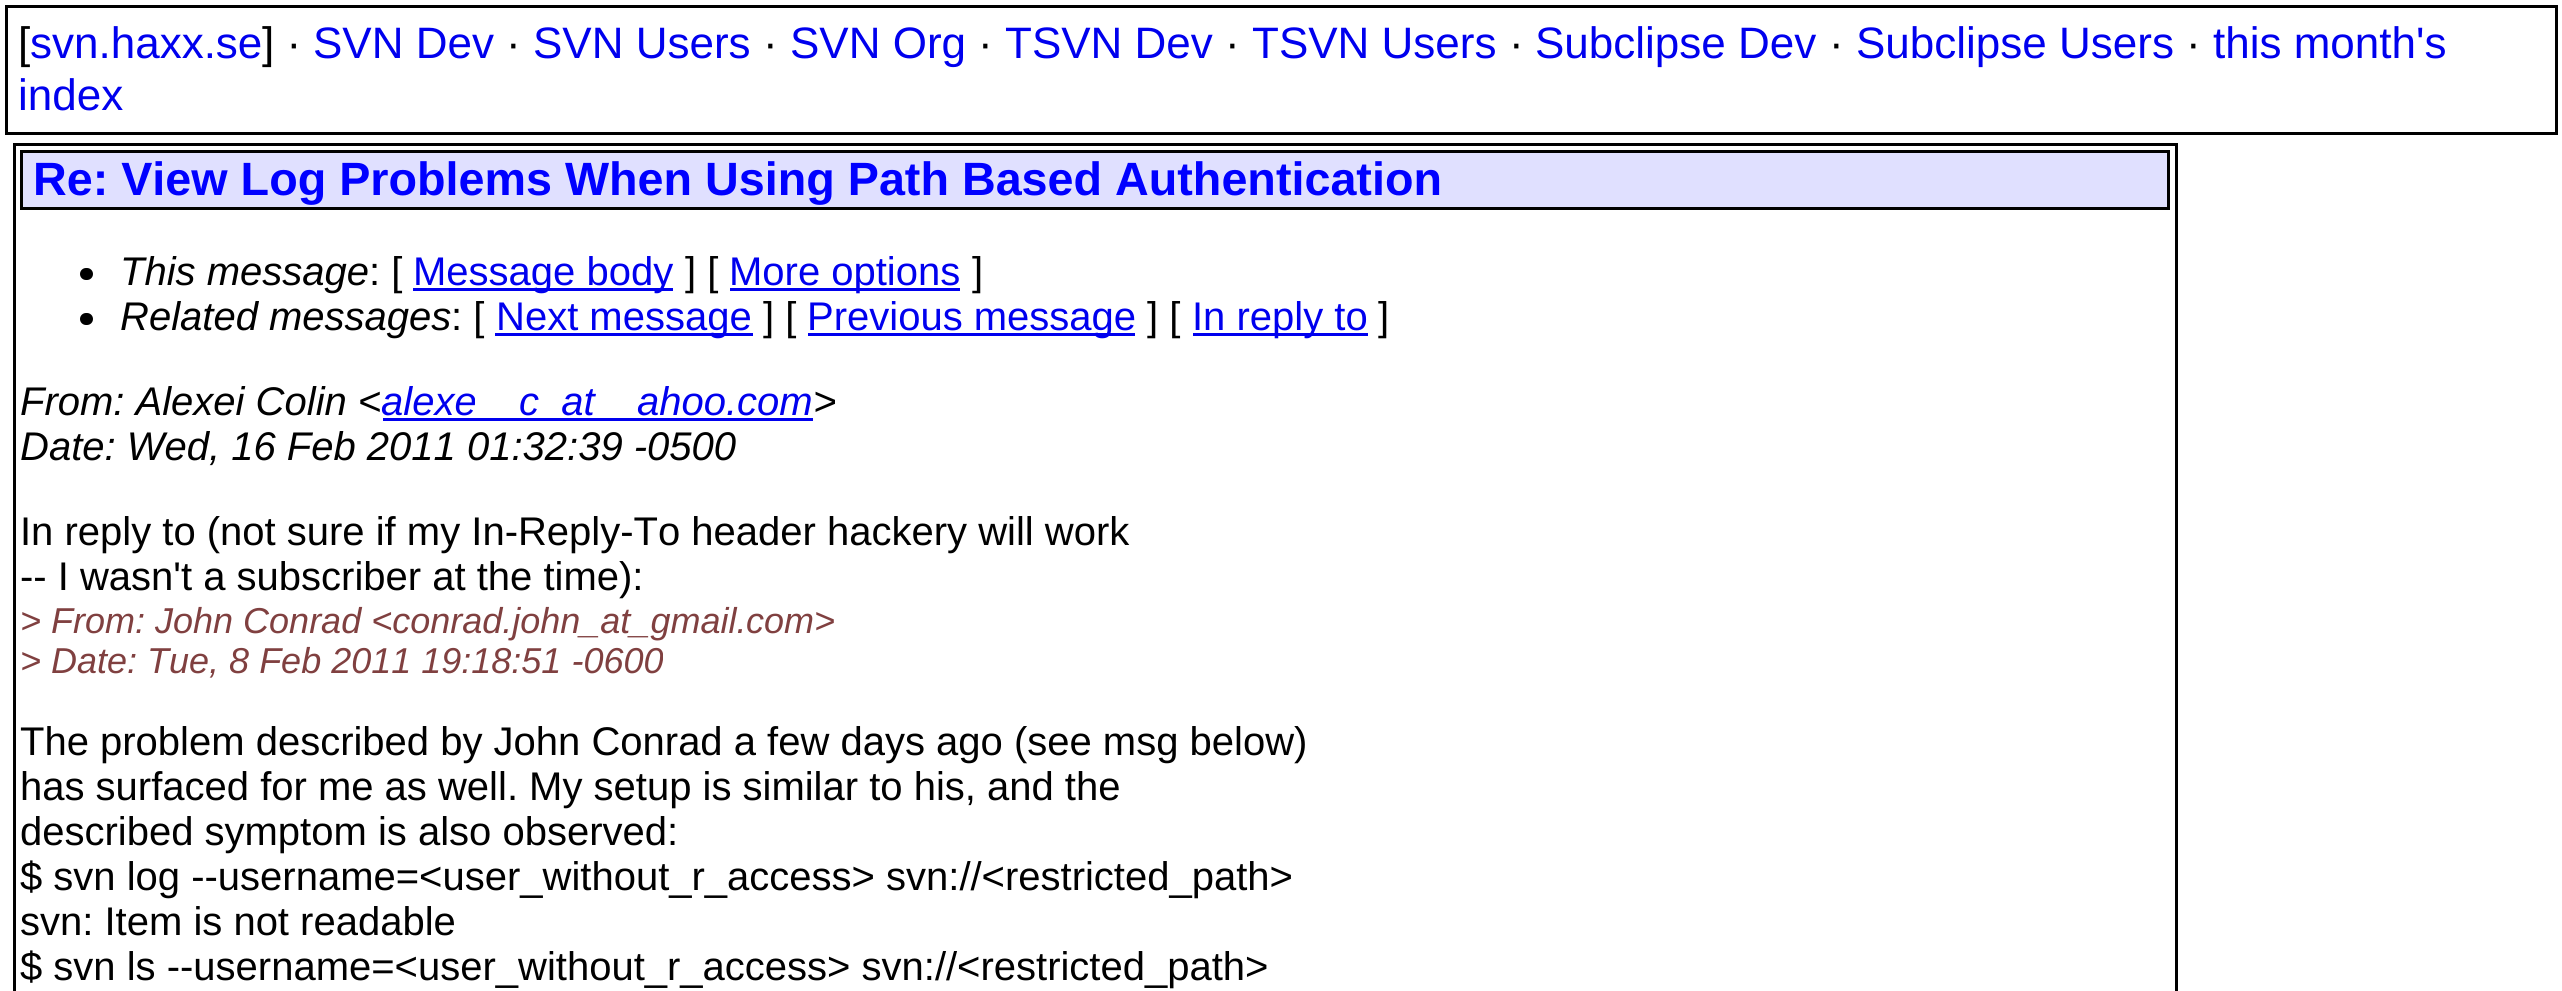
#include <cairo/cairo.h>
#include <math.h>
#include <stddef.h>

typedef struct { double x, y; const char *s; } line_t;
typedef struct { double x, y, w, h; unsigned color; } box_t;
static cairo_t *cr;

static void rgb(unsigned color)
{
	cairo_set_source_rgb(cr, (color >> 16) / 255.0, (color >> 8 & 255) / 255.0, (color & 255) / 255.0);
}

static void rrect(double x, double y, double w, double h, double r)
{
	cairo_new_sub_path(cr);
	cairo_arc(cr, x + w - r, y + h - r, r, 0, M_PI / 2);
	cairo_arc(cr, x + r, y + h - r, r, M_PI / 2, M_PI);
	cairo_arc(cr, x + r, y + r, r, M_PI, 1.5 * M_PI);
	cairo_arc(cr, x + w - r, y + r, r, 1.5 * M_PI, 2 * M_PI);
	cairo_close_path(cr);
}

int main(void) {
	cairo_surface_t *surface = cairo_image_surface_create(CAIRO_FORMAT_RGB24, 2562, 991);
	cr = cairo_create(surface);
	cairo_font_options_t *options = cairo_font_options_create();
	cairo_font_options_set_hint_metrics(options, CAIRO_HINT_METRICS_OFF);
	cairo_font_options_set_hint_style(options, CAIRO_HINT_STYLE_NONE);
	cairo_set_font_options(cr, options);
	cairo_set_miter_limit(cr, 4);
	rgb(0xffffff);
	cairo_paint(cr);
	cairo_rectangle(cr, 6.5, 6.5, 2550, 127);
	rgb(0x000000);
	cairo_set_line_width(cr, 3);
	cairo_stroke(cr);
	cairo_rectangle(cr, 14.5, 144.5, 2162, 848);
	cairo_stroke(cr);
	rgb(0xe0e0ff);
	cairo_rectangle(cr, 21.5, 151.5, 2147, 57);
	cairo_fill_preserve(cr);
	rgb(0x000000);
	cairo_stroke(cr);
	rrect(80, 268, 13, 12, 6);
	cairo_fill(cr);
	rgb(0x0000ee);
	cairo_rectangle(cr, 413, 288, 260, 3);
	cairo_fill(cr);
	cairo_rectangle(cr, 730, 288, 230, 3);
	cairo_fill(cr);
	rgb(0x000000);
	rrect(80, 313, 13, 12, 6);
	cairo_fill(cr);
	{
		static const box_t items[] = {
			{495, 333, 258, 3, 0x0000ee},
			{808, 333, 327, 3, 0x0000ee},
			{1193, 333, 175, 3, 0x0000ee},
			{383, 418, 430, 3, 0x0000ee},
		};
		for (size_t i = 0; i < sizeof items / sizeof *items; i++) {
			rgb(items[i].color);
			cairo_rectangle(cr, items[i].x, items[i].y, items[i].w, items[i].h);
			cairo_fill(cr);
		}
	}
	cairo_select_font_face(cr, "Liberation Sans", CAIRO_FONT_SLANT_NORMAL, CAIRO_FONT_WEIGHT_NORMAL);
	cairo_set_font_size(cr, 44);
	rgb(0x000000);
	cairo_move_to(cr, 18, 58);
	cairo_show_text(cr, "[");
	rgb(0x0000ee);
	cairo_move_to(cr, 30, 58);
	cairo_show_text(cr, "svn.haxx.se");
	rgb(0x000000);
	cairo_move_to(cr, 262, 58);
	cairo_show_text(cr, "] ·");
	rgb(0x0000ee);
	cairo_move_to(cr, 313, 58);
	cairo_show_text(cr, "SVN Dev");
	rgb(0x000000);
	cairo_move_to(cr, 506, 58);
	cairo_show_text(cr, "·");
	rgb(0x0000ee);
	cairo_move_to(cr, 533, 58);
	cairo_show_text(cr, "SVN Users");
	rgb(0x000000);
	cairo_move_to(cr, 763, 58);
	cairo_show_text(cr, "·");
	rgb(0x0000ee);
	cairo_move_to(cr, 790, 58);
	cairo_show_text(cr, "SVN Org");
	rgb(0x000000);
	cairo_move_to(cr, 978, 58);
	cairo_show_text(cr, "·");
	rgb(0x0000ee);
	cairo_move_to(cr, 1005, 58);
	cairo_show_text(cr, "TSVN Dev");
	rgb(0x000000);
	cairo_move_to(cr, 1225, 58);
	cairo_show_text(cr, "·");
	rgb(0x0000ee);
	cairo_move_to(cr, 1252, 58);
	cairo_show_text(cr, "TSVN Users");
	rgb(0x000000);
	cairo_move_to(cr, 1509, 58);
	cairo_show_text(cr, "·");
	rgb(0x0000ee);
	cairo_move_to(cr, 1535, 58);
	cairo_show_text(cr, "Subclipse Dev");
	rgb(0x000000);
	cairo_move_to(cr, 1829, 58);
	cairo_show_text(cr, "·");
	rgb(0x0000ee);
	cairo_move_to(cr, 1856, 58);
	cairo_show_text(cr, "Subclipse Users");
	rgb(0x000000);
	cairo_move_to(cr, 2186, 58);
	cairo_show_text(cr, "·");
	rgb(0x0000ee);
	cairo_move_to(cr, 2213, 58);
	cairo_show_text(cr, "this month's");
	cairo_move_to(cr, 18, 110);
	cairo_show_text(cr, "index");
	cairo_select_font_face(cr, "Liberation Sans", CAIRO_FONT_SLANT_NORMAL, CAIRO_FONT_WEIGHT_BOLD);
	cairo_set_font_size(cr, 46.7);
	rgb(0x0000ff);
	cairo_move_to(cr, 33, 195);
	cairo_show_text(cr, "Re: View Log Problems When Using Path Based Authentication");
	cairo_select_font_face(cr, "Liberation Sans", CAIRO_FONT_SLANT_ITALIC, CAIRO_FONT_WEIGHT_NORMAL);
	cairo_set_font_size(cr, 40);
	rgb(0x000000);
	cairo_move_to(cr, 120, 285);
	cairo_show_text(cr, "This message");
	cairo_select_font_face(cr, "Liberation Sans", CAIRO_FONT_SLANT_NORMAL, CAIRO_FONT_WEIGHT_NORMAL);
	cairo_move_to(cr, 369, 285);
	cairo_show_text(cr, ": [");
	rgb(0x0000ee);
	cairo_move_to(cr, 413, 285);
	cairo_show_text(cr, "Message body");
	rgb(0x000000);
	cairo_move_to(cr, 685, 285);
	cairo_show_text(cr, "] [");
	rgb(0x0000ee);
	cairo_move_to(cr, 729, 285);
	cairo_show_text(cr, "More options");
	rgb(0x000000);
	cairo_move_to(cr, 972, 285);
	cairo_show_text(cr, "]");
	cairo_select_font_face(cr, "Liberation Sans", CAIRO_FONT_SLANT_ITALIC, CAIRO_FONT_WEIGHT_NORMAL);
	cairo_move_to(cr, 120, 330);
	cairo_show_text(cr, "Related messages");
	cairo_select_font_face(cr, "Liberation Sans", CAIRO_FONT_SLANT_NORMAL, CAIRO_FONT_WEIGHT_NORMAL);
	cairo_move_to(cr, 451, 330);
	cairo_show_text(cr, ": [");
	rgb(0x0000ee);
	cairo_move_to(cr, 496, 330);
	cairo_show_text(cr, "Next message");
	rgb(0x000000);
	cairo_move_to(cr, 763, 330);
	cairo_show_text(cr, "] [");
	rgb(0x0000ee);
	cairo_move_to(cr, 807, 330);
	cairo_show_text(cr, "Previous message");
	rgb(0x000000);
	cairo_move_to(cr, 1147, 330);
	cairo_show_text(cr, "] [");
	rgb(0x0000ee);
	cairo_move_to(cr, 1192, 330);
	cairo_show_text(cr, "In reply to");
	rgb(0x000000);
	cairo_move_to(cr, 1378, 330);
	cairo_show_text(cr, "]");
	cairo_select_font_face(cr, "Liberation Sans", CAIRO_FONT_SLANT_ITALIC, CAIRO_FONT_WEIGHT_NORMAL);
	cairo_move_to(cr, 20, 415);
	cairo_show_text(cr, "From: Alexei Colin <");
	rgb(0x0000ee);
	{
		static const line_t items[] = {
			{381, 415, "alexe"},
			{519, 415, "c_at"},
			{637, 415, "ahoo.com"},
		};
		for (size_t i = 0; i < sizeof items / sizeof *items; i++) {
			cairo_move_to(cr, items[i].x, items[i].y);
			cairo_show_text(cr, items[i].s);
		}
	}
	rgb(0x000000);
	cairo_move_to(cr, 813, 415);
	cairo_show_text(cr, ">");
	cairo_move_to(cr, 20, 460);
	cairo_show_text(cr, "Date: Wed, 16 Feb 2011 01:32:39 -0500");
	cairo_select_font_face(cr, "Liberation Sans", CAIRO_FONT_SLANT_NORMAL, CAIRO_FONT_WEIGHT_NORMAL);
	cairo_move_to(cr, 20, 545);
	cairo_show_text(cr, "In reply to (not sure if my In-Reply-To header hackery will work");
	cairo_move_to(cr, 20, 590);
	cairo_show_text(cr, "-- I wasn't a subscriber at the time):");
	cairo_select_font_face(cr, "Liberation Sans", CAIRO_FONT_SLANT_ITALIC, CAIRO_FONT_WEIGHT_NORMAL);
	cairo_set_font_size(cr, 36);
	rgb(0x804040);
	{
		static const line_t items[] = {
			{20, 633, "> From: John Conrad <conrad.john_at_gmail."},
			{746, 633, "com>"},
			{20, 673, "> Date: Tue, 8 Feb 2011 19:18:51 -0600"},
		};
		for (size_t i = 0; i < sizeof items / sizeof *items; i++) {
			cairo_move_to(cr, items[i].x, items[i].y);
			cairo_show_text(cr, items[i].s);
		}
	}
	cairo_select_font_face(cr, "Liberation Sans", CAIRO_FONT_SLANT_NORMAL, CAIRO_FONT_WEIGHT_NORMAL);
	cairo_set_font_size(cr, 40);
	rgb(0x000000);
	{
		static const line_t items[] = {
			{20, 755, "The problem described by John Conrad a few days ago (see msg below)"},
			{20, 800, "has surfaced for me as well. My setup is similar to his, and the"},
			{20, 845, "described symptom is also observed:"},
			{20, 890, "$ svn log --username=<user_without_r_access> svn://<restricted_path>"},
			{20, 935, "svn: Item is not readable"},
			{20, 980, "$ svn ls --username=<user_without_r_access> svn://<restricted_path>"},
		};
		for (size_t i = 0; i < sizeof items / sizeof *items; i++) {
			cairo_move_to(cr, items[i].x, items[i].y);
			cairo_show_text(cr, items[i].s);
		}
	}
	cairo_surface_write_to_png(surface, "page.png");
	cairo_font_options_destroy(options);
	cairo_destroy(cr);
	cairo_surface_destroy(surface);
	return 0;
}
